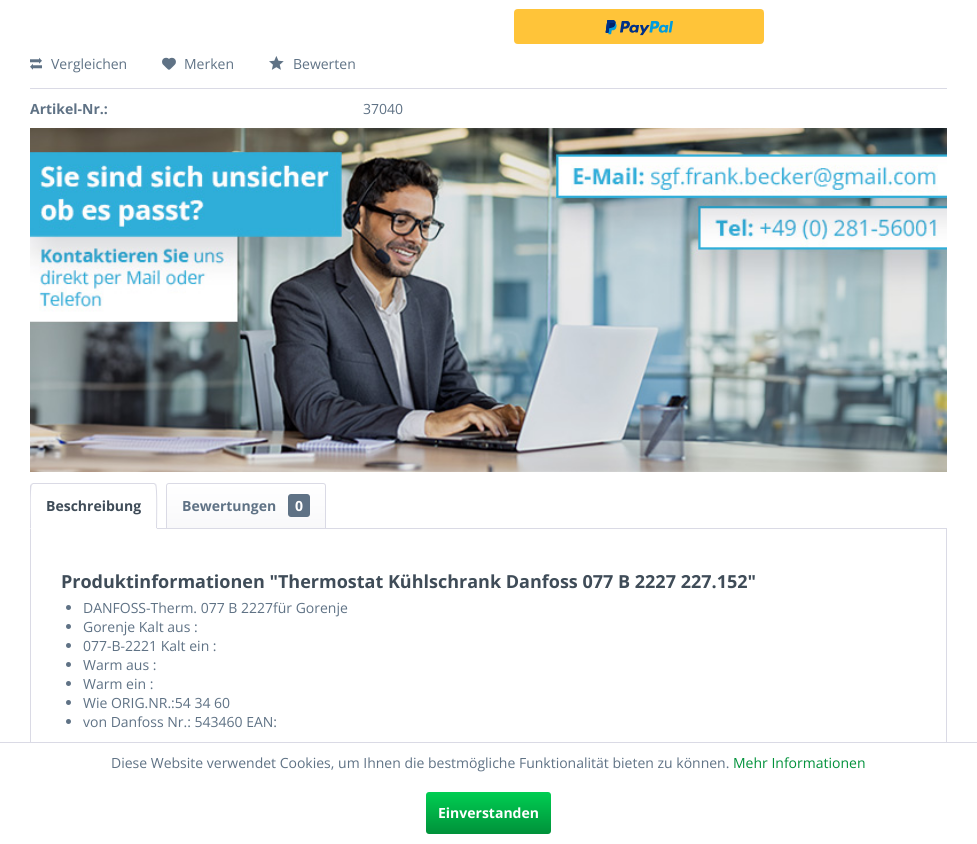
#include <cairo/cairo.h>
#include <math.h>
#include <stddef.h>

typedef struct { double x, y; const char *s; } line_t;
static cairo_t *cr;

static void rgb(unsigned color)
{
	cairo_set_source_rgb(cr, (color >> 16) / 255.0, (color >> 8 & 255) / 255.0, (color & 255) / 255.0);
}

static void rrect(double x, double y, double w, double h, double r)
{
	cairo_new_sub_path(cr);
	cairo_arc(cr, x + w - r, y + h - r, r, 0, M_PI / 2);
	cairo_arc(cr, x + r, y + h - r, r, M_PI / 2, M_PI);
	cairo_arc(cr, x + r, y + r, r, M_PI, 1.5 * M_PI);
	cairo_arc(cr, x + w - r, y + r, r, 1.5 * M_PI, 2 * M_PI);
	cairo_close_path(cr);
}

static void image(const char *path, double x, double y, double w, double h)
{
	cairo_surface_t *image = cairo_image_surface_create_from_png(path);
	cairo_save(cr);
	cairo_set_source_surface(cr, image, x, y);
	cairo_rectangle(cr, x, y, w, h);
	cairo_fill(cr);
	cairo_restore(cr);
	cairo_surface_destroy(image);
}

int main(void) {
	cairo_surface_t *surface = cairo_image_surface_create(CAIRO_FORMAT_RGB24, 977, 844);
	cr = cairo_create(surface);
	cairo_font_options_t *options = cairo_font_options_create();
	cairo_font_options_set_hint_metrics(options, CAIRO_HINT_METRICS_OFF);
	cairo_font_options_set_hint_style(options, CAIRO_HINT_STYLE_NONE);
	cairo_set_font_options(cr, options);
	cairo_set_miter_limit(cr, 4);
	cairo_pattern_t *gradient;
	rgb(0xffffff);
	cairo_paint(cr);
	image("img/1.png", 514, 9, 250, 35);
	rgb(0xdadae5);
	cairo_rectangle(cr, 30, 88, 917, 1);
	cairo_fill(cr);
	image("img/2.png", 30, 57, 12, 13);
	image("img/3.png", 162, 57, 14, 13);
	image("img/4.png", 269, 56, 15, 14);
	image("img/5.png", 30, 128, 917, 344);
	cairo_rectangle(cr, 30.5, 528.5, 916, 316);
	cairo_set_line_width(cr, 1);
	cairo_stroke(cr);
	rgb(0xffffff);
	cairo_new_path(cr);
	cairo_move_to(cr, 33, 483);
	cairo_line_to(cr, 154, 483);
	cairo_curve_to(cr, 155.5, 483, 157, 484.5, 157, 486);
	cairo_line_to(cr, 157, 529);
	cairo_line_to(cr, 30, 529);
	cairo_line_to(cr, 30, 486);
	cairo_curve_to(cr, 30, 484.5, 31.5, 483, 33, 483);
	cairo_close_path(cr);
	cairo_fill(cr);
	rgb(0xdadae5);
	cairo_new_path(cr);
	cairo_move_to(cr, 33, 483);
	cairo_line_to(cr, 31, 484);
	cairo_line_to(cr, 32, 485);
	cairo_line_to(cr, 33, 484);
	cairo_line_to(cr, 154, 484);
	cairo_line_to(cr, 155, 485);
	cairo_line_to(cr, 156, 484);
	cairo_line_to(cr, 154, 483);
	cairo_close_path(cr);
	cairo_fill(cr);
	cairo_new_path(cr);
	cairo_move_to(cr, 157, 529);
	cairo_curve_to(cr, 157, 524, 158, 486, 156, 484);
	cairo_line_to(cr, 155, 485);
	cairo_curve_to(cr, 157, 486, 156, 523, 156, 528);
	cairo_close_path(cr);
	cairo_fill(cr);
	rgb(0xffffff);
	cairo_new_path(cr);
	cairo_move_to(cr, 157, 529);
	cairo_line_to(cr, 156, 528);
	cairo_line_to(cr, 31, 528);
	cairo_line_to(cr, 30, 529);
	cairo_close_path(cr);
	cairo_fill(cr);
	rgb(0xdadae5);
	cairo_new_path(cr);
	cairo_move_to(cr, 30, 529);
	cairo_line_to(cr, 31, 528);
	cairo_curve_to(cr, 31, 523, 30, 486, 32, 485);
	cairo_line_to(cr, 31, 484);
	cairo_line_to(cr, 30, 486);
	cairo_close_path(cr);
	cairo_fill(cr);
	gradient = cairo_pattern_create_linear(246, 484, 246, 528);
	cairo_pattern_add_color_stop_rgba(gradient, 0, 1, 1, 1, 1);
	cairo_pattern_add_color_stop_rgba(gradient, 1, 0.973, 0.973, 0.98, 1);
	cairo_set_source(cr, gradient);
	cairo_pattern_destroy(gradient);
	cairo_new_path(cr);
	cairo_move_to(cr, 169, 484);
	cairo_line_to(cr, 323, 484);
	cairo_curve_to(cr, 324, 484, 325, 485, 325, 486);
	cairo_line_to(cr, 325, 528);
	cairo_line_to(cr, 167, 528);
	cairo_line_to(cr, 167, 486);
	cairo_curve_to(cr, 167, 485, 168, 484, 169, 484);
	cairo_close_path(cr);
	cairo_fill(cr);
	cairo_new_path(cr);
	cairo_move_to(cr, 169, 483.5);
	cairo_line_to(cr, 323, 483.5);
	cairo_curve_to(cr, 324.5, 483.5, 325.5, 484.5, 325.5, 486);
	cairo_line_to(cr, 325.5, 528.5);
	cairo_line_to(cr, 166.5, 528.5);
	cairo_line_to(cr, 166.5, 486);
	cairo_curve_to(cr, 166.5, 484.5, 167.5, 483.5, 169, 483.5);
	cairo_close_path(cr);
	rgb(0xdadae5);
	cairo_stroke(cr);
	rgb(0x5f7285);
	rrect(288, 494, 22, 23, 3);
	cairo_fill(cr);
	cairo_arc(cr, 68.5, 607.5, 2.5, 0, 2 * M_PI);
	cairo_fill(cr);
	cairo_arc(cr, 68.5, 626.5, 2.5, 0, 2 * M_PI);
	cairo_fill(cr);
	cairo_arc(cr, 68.5, 645.5, 2.5, 0, 2 * M_PI);
	cairo_fill(cr);
	cairo_arc(cr, 68.5, 664.5, 2.5, 0, 2 * M_PI);
	cairo_fill(cr);
	cairo_arc(cr, 68.5, 683.5, 2.5, 0, 2 * M_PI);
	cairo_fill(cr);
	cairo_arc(cr, 68.5, 702.5, 2.5, 0, 2 * M_PI);
	cairo_fill(cr);
	cairo_arc(cr, 68.5, 721.5, 2.5, 0, 2 * M_PI);
	cairo_fill(cr);
	rgb(0xffffff);
	cairo_rectangle(cr, 30, 743, 917, 101);
	cairo_fill(cr);
	rgb(0xdadae5);
	cairo_rectangle(cr, 0, 742, 977, 1);
	cairo_fill(cr);
	gradient = cairo_pattern_create_linear(489, 792, 489, 834);
	cairo_pattern_add_color_stop_rgba(gradient, 0, 0, 0.808, 0.322, 1);
	cairo_pattern_add_color_stop_rgba(gradient, 1, 0, 0.569, 0.227, 1);
	cairo_set_source(cr, gradient);
	cairo_pattern_destroy(gradient);
	rrect(426, 792, 125, 42, 3);
	cairo_fill(cr);
	cairo_select_font_face(cr, "Open Sans", CAIRO_FONT_SLANT_NORMAL, CAIRO_FONT_WEIGHT_NORMAL);
	cairo_set_font_size(cr, 14);
	rgb(0x5f7285);
	{
		static const line_t items[] = {
			{51, 69, "Vergleichen"},
			{184, 69, "Merken"},
			{293, 69, "Bewerten"},
		};
		for (size_t i = 0; i < sizeof items / sizeof *items; i++) {
			cairo_move_to(cr, items[i].x, items[i].y);
			cairo_show_text(cr, items[i].s);
		}
	}
	cairo_select_font_face(cr, "Open Sans", CAIRO_FONT_SLANT_NORMAL, CAIRO_FONT_WEIGHT_BOLD);
	cairo_move_to(cr, 30, 114);
	cairo_show_text(cr, "Artikel-Nr.:");
	cairo_select_font_face(cr, "Open Sans", CAIRO_FONT_SLANT_NORMAL, CAIRO_FONT_WEIGHT_NORMAL);
	cairo_move_to(cr, 363, 114);
	cairo_show_text(cr, "37040");
	cairo_select_font_face(cr, "Open Sans", CAIRO_FONT_SLANT_NORMAL, CAIRO_FONT_WEIGHT_BOLD);
	rgb(0x3f4c58);
	cairo_move_to(cr, 46, 511);
	cairo_show_text(cr, "Beschreibung");
	rgb(0x5f7285);
	cairo_move_to(cr, 182, 511);
	cairo_show_text(cr, "Bewertungen");
	rgb(0xffffff);
	cairo_move_to(cr, 295, 511);
	cairo_show_text(cr, "0");
	cairo_set_font_size(cr, 18);
	rgb(0x3f4c58);
	cairo_move_to(cr, 61, 588);
	cairo_show_text(cr, "Produktinformationen \"Thermostat Kühlschrank Danfoss 077 B 2227 227.152\"");
	cairo_select_font_face(cr, "Open Sans", CAIRO_FONT_SLANT_NORMAL, CAIRO_FONT_WEIGHT_NORMAL);
	cairo_set_font_size(cr, 14);
	rgb(0x5f7285);
	{
		static const line_t items[] = {
			{83, 613, "DANFOSS-Therm. 077 B 2227für Gorenje"},
			{83, 632, "Gorenje Kalt aus :"},
			{83, 651, "077-B-2221 Kalt ein :"},
			{83, 670, "Warm aus :"},
			{83, 689, "Warm ein :"},
			{83, 708, "Wie ORIG.NR.:54 34 60"},
			{83, 727, "von Danfoss Nr.: 543460 EAN:"},
			{111, 768, "Diese Website verwendet Cookies, um Ihnen die bestmögliche Funktionalität bieten zu können."},
		};
		for (size_t i = 0; i < sizeof items / sizeof *items; i++) {
			cairo_move_to(cr, items[i].x, items[i].y);
			cairo_show_text(cr, items[i].s);
		}
	}
	rgb(0x00913a);
	cairo_move_to(cr, 733, 768);
	cairo_show_text(cr, "Mehr Informationen");
	cairo_select_font_face(cr, "Open Sans", CAIRO_FONT_SLANT_NORMAL, CAIRO_FONT_WEIGHT_BOLD);
	rgb(0xffffff);
	cairo_move_to(cr, 438, 818);
	cairo_show_text(cr, "Einverstanden");
	cairo_surface_write_to_png(surface, "page.png");
	cairo_font_options_destroy(options);
	cairo_destroy(cr);
	cairo_surface_destroy(surface);
	return 0;
}
